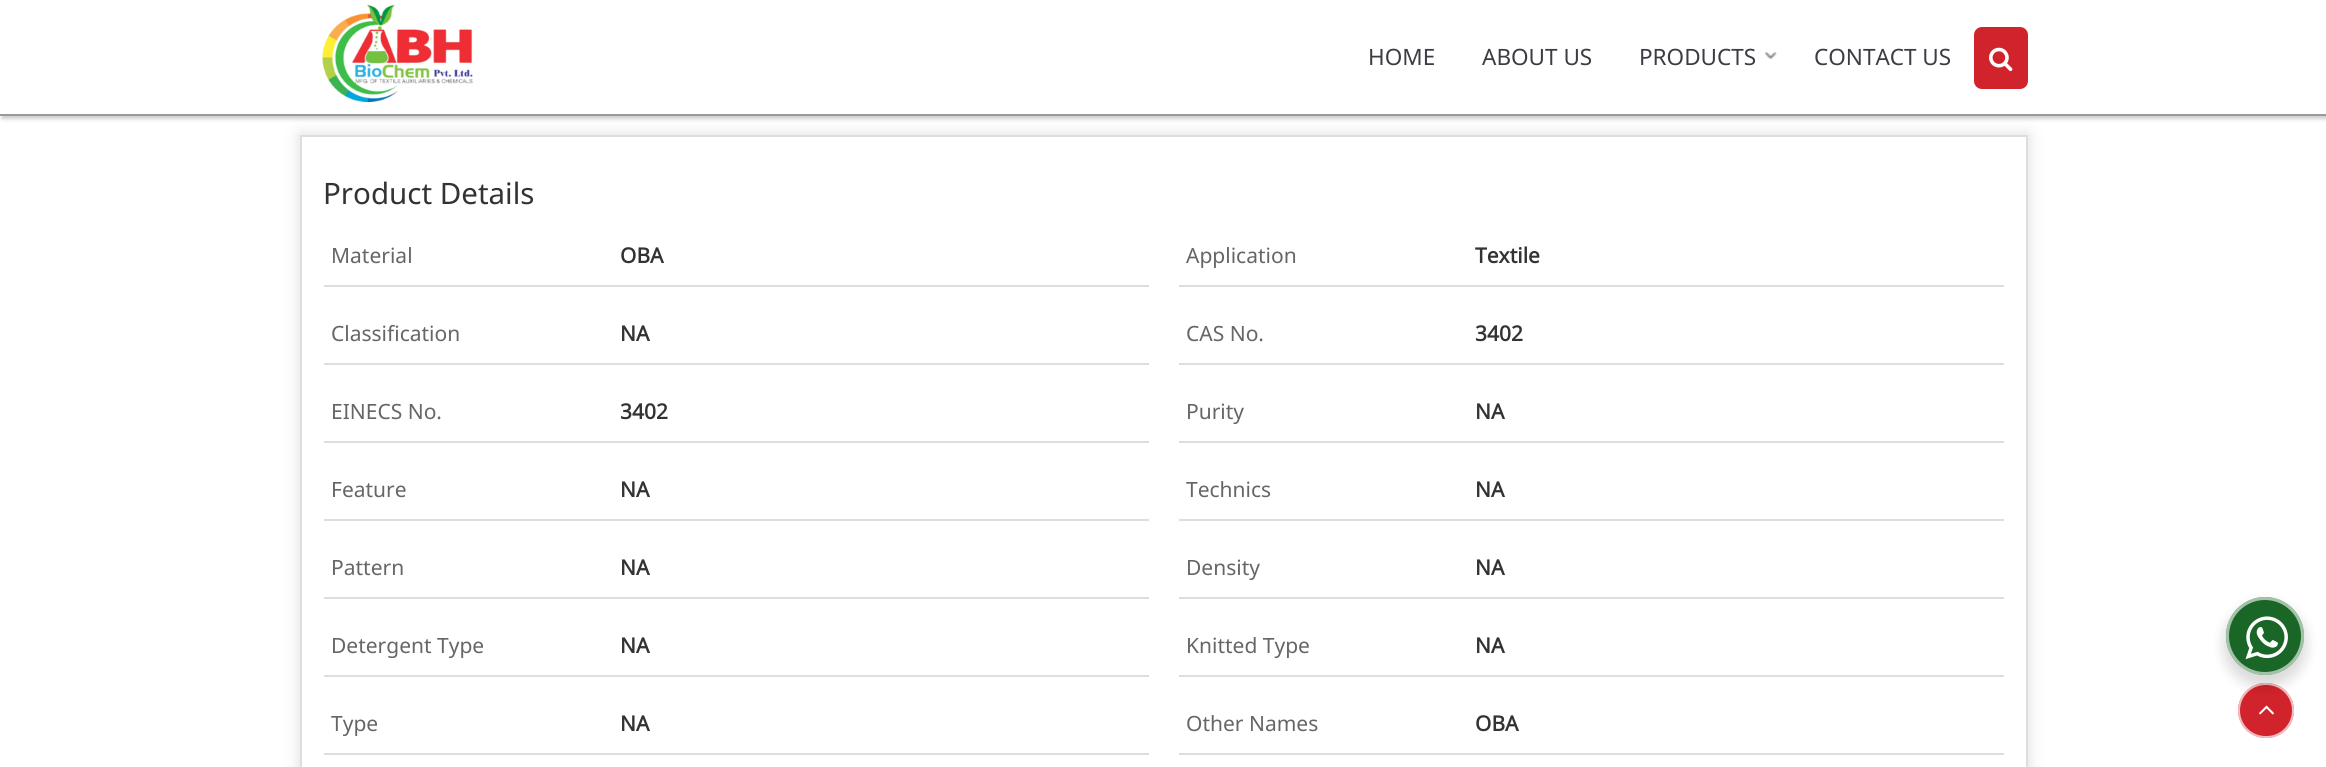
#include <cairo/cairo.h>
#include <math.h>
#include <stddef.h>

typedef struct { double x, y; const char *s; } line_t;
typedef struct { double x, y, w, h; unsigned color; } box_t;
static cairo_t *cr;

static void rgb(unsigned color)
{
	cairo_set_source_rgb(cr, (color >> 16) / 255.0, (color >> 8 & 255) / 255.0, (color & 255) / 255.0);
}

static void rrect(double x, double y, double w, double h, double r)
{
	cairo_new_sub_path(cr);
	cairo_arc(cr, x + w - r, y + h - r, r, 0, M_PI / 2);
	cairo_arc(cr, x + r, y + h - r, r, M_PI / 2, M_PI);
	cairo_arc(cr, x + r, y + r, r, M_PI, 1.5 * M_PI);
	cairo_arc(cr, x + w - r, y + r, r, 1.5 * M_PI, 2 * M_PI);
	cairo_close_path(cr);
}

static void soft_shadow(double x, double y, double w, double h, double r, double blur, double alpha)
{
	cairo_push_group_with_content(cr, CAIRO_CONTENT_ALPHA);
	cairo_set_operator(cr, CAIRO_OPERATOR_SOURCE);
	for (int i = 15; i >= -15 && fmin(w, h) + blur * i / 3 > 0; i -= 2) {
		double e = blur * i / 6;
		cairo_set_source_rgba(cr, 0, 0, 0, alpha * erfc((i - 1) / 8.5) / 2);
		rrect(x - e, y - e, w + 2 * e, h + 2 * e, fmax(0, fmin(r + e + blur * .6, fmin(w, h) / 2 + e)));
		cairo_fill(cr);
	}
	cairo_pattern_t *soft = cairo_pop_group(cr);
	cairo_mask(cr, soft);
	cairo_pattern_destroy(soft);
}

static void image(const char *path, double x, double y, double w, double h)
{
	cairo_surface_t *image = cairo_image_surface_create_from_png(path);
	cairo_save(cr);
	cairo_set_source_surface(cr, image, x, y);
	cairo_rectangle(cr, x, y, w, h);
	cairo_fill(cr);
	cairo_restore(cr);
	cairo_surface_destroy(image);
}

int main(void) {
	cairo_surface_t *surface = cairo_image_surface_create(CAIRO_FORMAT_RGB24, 2326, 767);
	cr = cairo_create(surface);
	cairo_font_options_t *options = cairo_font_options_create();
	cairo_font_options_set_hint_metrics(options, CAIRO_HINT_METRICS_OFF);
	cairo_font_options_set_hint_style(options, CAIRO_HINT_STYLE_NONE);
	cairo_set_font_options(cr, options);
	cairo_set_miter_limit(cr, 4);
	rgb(0xffffff);
	cairo_paint(cr);
	rgb(0x000000);
	soft_shadow(2, 3, 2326, 116, 0, 2, 0.2);
	cairo_save(cr);
	cairo_set_fill_rule(cr, CAIRO_FILL_RULE_EVEN_ODD);
	cairo_new_path(cr);
	cairo_move_to(cr, 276, 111);
	cairo_line_to(cr, 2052, 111);
	cairo_line_to(cr, 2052, 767);
	cairo_line_to(cr, 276, 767);
	cairo_close_path(cr);
	cairo_move_to(cr, 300, 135);
	cairo_line_to(cr, 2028, 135);
	cairo_line_to(cr, 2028, 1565);
	cairo_line_to(cr, 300, 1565);
	cairo_close_path(cr);
	cairo_clip(cr);
	rgb(0xcccccc);
	soft_shadow(300, 135, 1728, 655, 0, 7.5, 0.67);
	cairo_restore(cr);
	rgb(0xffffff);
	cairo_rectangle(cr, 0, 0, 2326, 114);
	cairo_fill(cr);
	rgb(0x999999);
	cairo_rectangle(cr, 0, 114, 2326, 2);
	cairo_fill(cr);
	image("img/1.png", 322, 4, 151, 98);
	image("img/2.png", 1765, 52, 12, 8);
	rgb(0xd1232b);
	rrect(1974, 27, 54, 62, 8);
	cairo_fill(cr);
	image("img/3.png", 1989, 47, 24, 25);
	cairo_rectangle(cr, 301, 136, 1726, 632);
	rgb(0xdedede);
	cairo_stroke(cr);
	{
		static const box_t items[] = {
			{324, 285, 825, 2, 0xdedede},
			{1179, 285, 825, 2, 0xdedede},
			{324, 363, 825, 2, 0xdedede},
			{1179, 363, 825, 2, 0xdedede},
			{324, 441, 825, 2, 0xdedede},
			{1179, 441, 825, 2, 0xdedede},
			{324, 519, 825, 2, 0xdedede},
			{1179, 519, 825, 2, 0xdedede},
			{324, 597, 825, 2, 0xdedede},
			{1179, 597, 825, 2, 0xdedede},
			{324, 675, 825, 2, 0xdedede},
			{1179, 675, 825, 2, 0xdedede},
			{324, 753, 825, 2, 0xdedede},
			{1179, 753, 825, 2, 0xdedede},
		};
		for (size_t i = 0; i < sizeof items / sizeof *items; i++) {
			rgb(items[i].color);
			cairo_rectangle(cr, items[i].x, items[i].y, items[i].w, items[i].h);
			cairo_fill(cr);
		}
	}
	rgb(0xd1232b);
	rrect(2238, 683, 56, 55, 27.5);
	cairo_fill(cr);
	rrect(2239, 684, 54, 53, 26.5);
	cairo_set_source_rgba(cr, 1, 1, 1, 0.7);
	cairo_stroke(cr);
	image("img/5.png", 2259, 705, 15, 10);
	rgb(0x000000);
	soft_shadow(2223, 603, 84, 84, 42, 6, 0.14);
	rgb(0x196626);
	cairo_arc(cr, 2265, 636, 39, 0, 2 * M_PI);
	cairo_fill(cr);
	cairo_arc(cr, 2265, 636, 37.5, 0, 2 * M_PI);
	cairo_set_source_rgba(cr, 1, 1, 1, 0.6);
	cairo_set_line_width(cr, 3);
	cairo_stroke(cr);
	image("img/4.png", 2245, 616, 43, 44);
	cairo_select_font_face(cr, "Noto Sans", CAIRO_FONT_SLANT_NORMAL, CAIRO_FONT_WEIGHT_NORMAL);
	cairo_set_font_size(cr, 22.5);
	rgb(0x3c3c44);
	{
		static const line_t items[] = {
			{1368, 65, "HOME"},
			{1482, 65, "ABOUT US"},
			{1639, 65, "PRODUCTS"},
			{1814, 65, "CONTACT US"},
		};
		for (size_t i = 0; i < sizeof items / sizeof *items; i++) {
			cairo_move_to(cr, items[i].x, items[i].y);
			cairo_show_text(cr, items[i].s);
		}
	}
	cairo_set_font_size(cr, 29.5);
	rgb(0x333333);
	cairo_move_to(cr, 323, 204);
	cairo_show_text(cr, "Product Details");
	cairo_set_font_size(cr, 21);
	rgb(0x666666);
	cairo_move_to(cr, 331, 263);
	cairo_show_text(cr, "Material");
	cairo_select_font_face(cr, "Noto Sans", CAIRO_FONT_SLANT_NORMAL, CAIRO_FONT_WEIGHT_BOLD);
	rgb(0x333333);
	cairo_move_to(cr, 620, 263);
	cairo_show_text(cr, "OBA");
	cairo_select_font_face(cr, "Noto Sans", CAIRO_FONT_SLANT_NORMAL, CAIRO_FONT_WEIGHT_NORMAL);
	rgb(0x666666);
	cairo_move_to(cr, 1186, 263);
	cairo_show_text(cr, "Application");
	cairo_select_font_face(cr, "Noto Sans", CAIRO_FONT_SLANT_NORMAL, CAIRO_FONT_WEIGHT_BOLD);
	rgb(0x333333);
	cairo_move_to(cr, 1475, 263);
	cairo_show_text(cr, "Textile");
	cairo_select_font_face(cr, "Noto Sans", CAIRO_FONT_SLANT_NORMAL, CAIRO_FONT_WEIGHT_NORMAL);
	rgb(0x666666);
	cairo_move_to(cr, 331, 341);
	cairo_show_text(cr, "Classification");
	cairo_select_font_face(cr, "Noto Sans", CAIRO_FONT_SLANT_NORMAL, CAIRO_FONT_WEIGHT_BOLD);
	rgb(0x333333);
	cairo_move_to(cr, 620, 341);
	cairo_show_text(cr, "NA");
	cairo_select_font_face(cr, "Noto Sans", CAIRO_FONT_SLANT_NORMAL, CAIRO_FONT_WEIGHT_NORMAL);
	rgb(0x666666);
	cairo_move_to(cr, 1186, 341);
	cairo_show_text(cr, "CAS No.");
	cairo_select_font_face(cr, "Noto Sans", CAIRO_FONT_SLANT_NORMAL, CAIRO_FONT_WEIGHT_BOLD);
	rgb(0x333333);
	cairo_move_to(cr, 1475, 341);
	cairo_show_text(cr, "3402");
	cairo_select_font_face(cr, "Noto Sans", CAIRO_FONT_SLANT_NORMAL, CAIRO_FONT_WEIGHT_NORMAL);
	rgb(0x666666);
	cairo_move_to(cr, 331, 419);
	cairo_show_text(cr, "EINECS No.");
	cairo_select_font_face(cr, "Noto Sans", CAIRO_FONT_SLANT_NORMAL, CAIRO_FONT_WEIGHT_BOLD);
	rgb(0x333333);
	cairo_move_to(cr, 620, 419);
	cairo_show_text(cr, "3402");
	cairo_select_font_face(cr, "Noto Sans", CAIRO_FONT_SLANT_NORMAL, CAIRO_FONT_WEIGHT_NORMAL);
	rgb(0x666666);
	cairo_move_to(cr, 1186, 419);
	cairo_show_text(cr, "Purity");
	cairo_select_font_face(cr, "Noto Sans", CAIRO_FONT_SLANT_NORMAL, CAIRO_FONT_WEIGHT_BOLD);
	rgb(0x333333);
	cairo_move_to(cr, 1475, 419);
	cairo_show_text(cr, "NA");
	cairo_select_font_face(cr, "Noto Sans", CAIRO_FONT_SLANT_NORMAL, CAIRO_FONT_WEIGHT_NORMAL);
	rgb(0x666666);
	cairo_move_to(cr, 331, 497);
	cairo_show_text(cr, "Feature");
	cairo_select_font_face(cr, "Noto Sans", CAIRO_FONT_SLANT_NORMAL, CAIRO_FONT_WEIGHT_BOLD);
	rgb(0x333333);
	cairo_move_to(cr, 620, 497);
	cairo_show_text(cr, "NA");
	cairo_select_font_face(cr, "Noto Sans", CAIRO_FONT_SLANT_NORMAL, CAIRO_FONT_WEIGHT_NORMAL);
	rgb(0x666666);
	cairo_move_to(cr, 1186, 497);
	cairo_show_text(cr, "Technics");
	cairo_select_font_face(cr, "Noto Sans", CAIRO_FONT_SLANT_NORMAL, CAIRO_FONT_WEIGHT_BOLD);
	rgb(0x333333);
	cairo_move_to(cr, 1475, 497);
	cairo_show_text(cr, "NA");
	cairo_select_font_face(cr, "Noto Sans", CAIRO_FONT_SLANT_NORMAL, CAIRO_FONT_WEIGHT_NORMAL);
	rgb(0x666666);
	cairo_move_to(cr, 331, 575);
	cairo_show_text(cr, "Pattern");
	cairo_select_font_face(cr, "Noto Sans", CAIRO_FONT_SLANT_NORMAL, CAIRO_FONT_WEIGHT_BOLD);
	rgb(0x333333);
	cairo_move_to(cr, 620, 575);
	cairo_show_text(cr, "NA");
	cairo_select_font_face(cr, "Noto Sans", CAIRO_FONT_SLANT_NORMAL, CAIRO_FONT_WEIGHT_NORMAL);
	rgb(0x666666);
	cairo_move_to(cr, 1186, 575);
	cairo_show_text(cr, "Density");
	cairo_select_font_face(cr, "Noto Sans", CAIRO_FONT_SLANT_NORMAL, CAIRO_FONT_WEIGHT_BOLD);
	rgb(0x333333);
	cairo_move_to(cr, 1475, 575);
	cairo_show_text(cr, "NA");
	cairo_select_font_face(cr, "Noto Sans", CAIRO_FONT_SLANT_NORMAL, CAIRO_FONT_WEIGHT_NORMAL);
	rgb(0x666666);
	cairo_move_to(cr, 331, 653);
	cairo_show_text(cr, "Detergent Type");
	cairo_select_font_face(cr, "Noto Sans", CAIRO_FONT_SLANT_NORMAL, CAIRO_FONT_WEIGHT_BOLD);
	rgb(0x333333);
	cairo_move_to(cr, 620, 653);
	cairo_show_text(cr, "NA");
	cairo_select_font_face(cr, "Noto Sans", CAIRO_FONT_SLANT_NORMAL, CAIRO_FONT_WEIGHT_NORMAL);
	rgb(0x666666);
	cairo_move_to(cr, 1186, 653);
	cairo_show_text(cr, "Knitted Type");
	cairo_select_font_face(cr, "Noto Sans", CAIRO_FONT_SLANT_NORMAL, CAIRO_FONT_WEIGHT_BOLD);
	rgb(0x333333);
	cairo_move_to(cr, 1475, 653);
	cairo_show_text(cr, "NA");
	cairo_select_font_face(cr, "Noto Sans", CAIRO_FONT_SLANT_NORMAL, CAIRO_FONT_WEIGHT_NORMAL);
	rgb(0x666666);
	cairo_move_to(cr, 331, 731);
	cairo_show_text(cr, "Type");
	cairo_select_font_face(cr, "Noto Sans", CAIRO_FONT_SLANT_NORMAL, CAIRO_FONT_WEIGHT_BOLD);
	rgb(0x333333);
	cairo_move_to(cr, 620, 731);
	cairo_show_text(cr, "NA");
	cairo_select_font_face(cr, "Noto Sans", CAIRO_FONT_SLANT_NORMAL, CAIRO_FONT_WEIGHT_NORMAL);
	rgb(0x666666);
	cairo_move_to(cr, 1186, 731);
	cairo_show_text(cr, "Other Names");
	cairo_select_font_face(cr, "Noto Sans", CAIRO_FONT_SLANT_NORMAL, CAIRO_FONT_WEIGHT_BOLD);
	rgb(0x333333);
	cairo_move_to(cr, 1475, 731);
	cairo_show_text(cr, "OBA");
	cairo_surface_write_to_png(surface, "page.png");
	cairo_font_options_destroy(options);
	cairo_destroy(cr);
	cairo_surface_destroy(surface);
	return 0;
}
